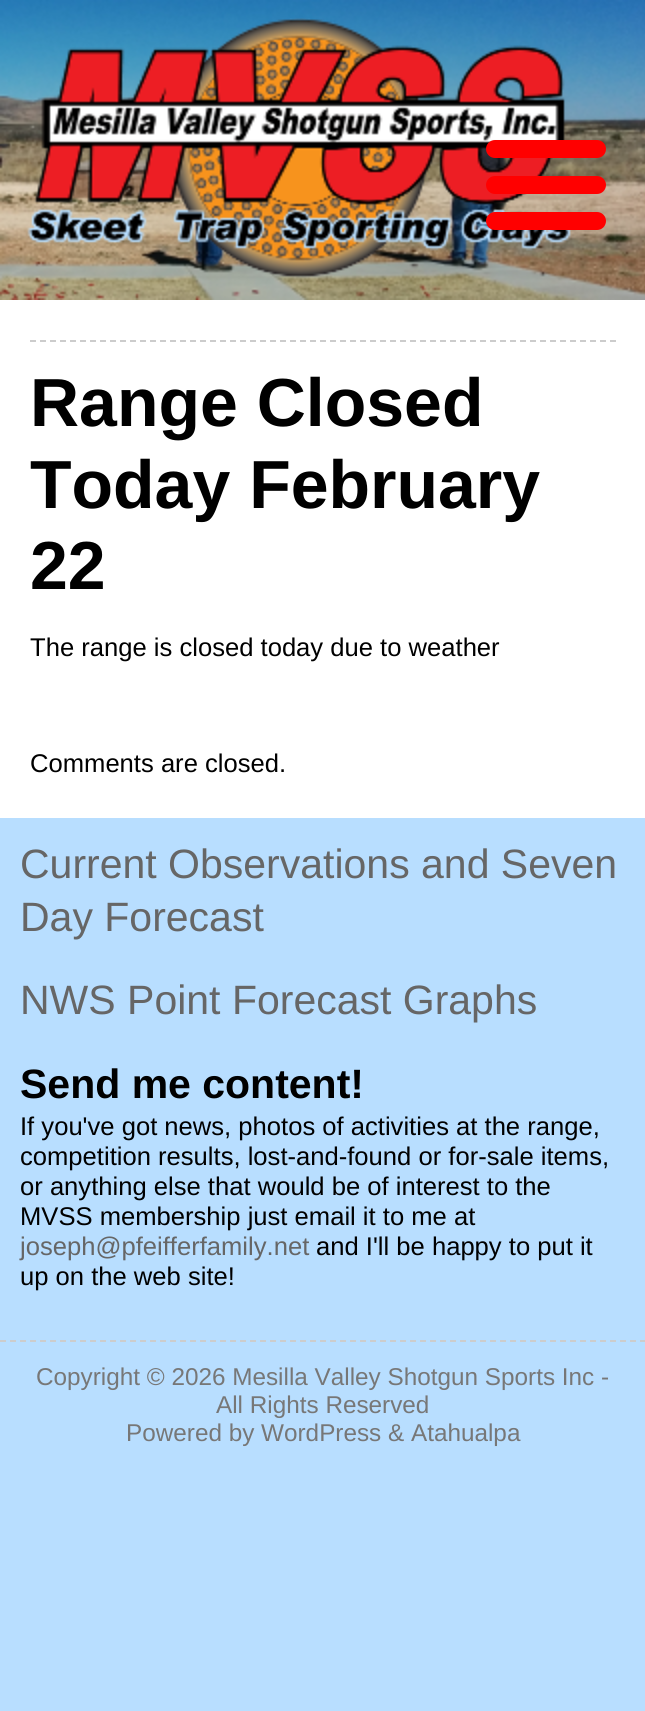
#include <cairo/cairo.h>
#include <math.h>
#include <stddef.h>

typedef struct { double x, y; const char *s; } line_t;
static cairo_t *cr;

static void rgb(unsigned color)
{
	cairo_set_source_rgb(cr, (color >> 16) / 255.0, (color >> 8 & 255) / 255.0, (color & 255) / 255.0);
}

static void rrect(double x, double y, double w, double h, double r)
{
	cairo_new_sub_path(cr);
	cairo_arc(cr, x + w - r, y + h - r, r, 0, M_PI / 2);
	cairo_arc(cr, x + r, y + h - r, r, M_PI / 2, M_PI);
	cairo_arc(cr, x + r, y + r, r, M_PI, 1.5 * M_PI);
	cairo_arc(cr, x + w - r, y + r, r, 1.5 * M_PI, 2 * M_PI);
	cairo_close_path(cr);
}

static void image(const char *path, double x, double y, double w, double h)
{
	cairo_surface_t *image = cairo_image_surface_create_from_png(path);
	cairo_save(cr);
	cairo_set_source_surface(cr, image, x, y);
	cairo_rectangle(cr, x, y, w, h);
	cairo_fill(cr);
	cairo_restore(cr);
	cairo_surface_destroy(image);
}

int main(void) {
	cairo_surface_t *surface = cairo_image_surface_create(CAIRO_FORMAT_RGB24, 645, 1711);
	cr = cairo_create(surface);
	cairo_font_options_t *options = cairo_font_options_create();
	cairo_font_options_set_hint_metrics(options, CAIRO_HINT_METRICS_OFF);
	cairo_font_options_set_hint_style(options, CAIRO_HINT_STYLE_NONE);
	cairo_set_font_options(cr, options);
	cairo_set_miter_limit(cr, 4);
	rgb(0xb8deff);
	cairo_paint(cr);
	image("img/1.png", 0, 0, 645, 300);
	image("img/2.png", 27, 18, 544, 260);
	rgb(0xff0000);
	rrect(486, 140, 120, 18, 9);
	cairo_fill(cr);
	rrect(486, 176, 120, 18, 9);
	cairo_fill(cr);
	rrect(486, 212, 120, 18, 9);
	cairo_fill(cr);
	rgb(0xffffff);
	cairo_rectangle(cr, 0, 300, 645, 518);
	cairo_fill(cr);
	cairo_new_path(cr);
	cairo_move_to(cr, 30, 341);
	cairo_line_to(cr, 616, 341);
	rgb(0xcccccc);
	cairo_set_dash(cr, (double[]){6, 4}, 2, 0);
	cairo_stroke(cr);
	cairo_new_path(cr);
	cairo_move_to(cr, 0, 1341);
	cairo_line_to(cr, 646, 1341);
	cairo_stroke(cr);
	cairo_select_font_face(cr, "Liberation Sans", CAIRO_FONT_SLANT_NORMAL, CAIRO_FONT_WEIGHT_BOLD);
	cairo_set_font_size(cr, 68);
	rgb(0x000000);
	{
		static const line_t items[] = {
			{30, 426, "Range Closed"},
			{30, 508, "Today February"},
			{30, 589, "22"},
		};
		for (size_t i = 0; i < sizeof items / sizeof *items; i++) {
			cairo_move_to(cr, items[i].x, items[i].y);
			cairo_show_text(cr, items[i].s);
		}
	}
	cairo_select_font_face(cr, "Liberation Sans", CAIRO_FONT_SLANT_NORMAL, CAIRO_FONT_WEIGHT_NORMAL);
	cairo_set_font_size(cr, 25.6);
	cairo_move_to(cr, 30, 656);
	cairo_show_text(cr, "The range is closed today due to weather");
	cairo_move_to(cr, 30, 772);
	cairo_show_text(cr, "Comments are closed.");
	cairo_set_font_size(cr, 41);
	rgb(0x666666);
	{
		static const line_t items[] = {
			{20, 878, "Current Observations and Seven"},
			{20, 931, "Day Forecast"},
			{20, 1014, "NWS Point Forecast Graphs"},
		};
		for (size_t i = 0; i < sizeof items / sizeof *items; i++) {
			cairo_move_to(cr, items[i].x, items[i].y);
			cairo_show_text(cr, items[i].s);
		}
	}
	cairo_select_font_face(cr, "Liberation Sans", CAIRO_FONT_SLANT_NORMAL, CAIRO_FONT_WEIGHT_BOLD);
	rgb(0x000000);
	cairo_move_to(cr, 20, 1098);
	cairo_show_text(cr, "Send me content!");
	cairo_select_font_face(cr, "Liberation Sans", CAIRO_FONT_SLANT_NORMAL, CAIRO_FONT_WEIGHT_NORMAL);
	cairo_set_font_size(cr, 25.6);
	{
		static const line_t items[] = {
			{20, 1135, "If you've got news, photos of activities at the range,"},
			{20, 1165, "competition results, lost-and-found or for-sale items,"},
			{20, 1195, "or anything else that would be of interest to the"},
			{20, 1225, "MVSS membership just email it to me at"},
		};
		for (size_t i = 0; i < sizeof items / sizeof *items; i++) {
			cairo_move_to(cr, items[i].x, items[i].y);
			cairo_show_text(cr, items[i].s);
		}
	}
	rgb(0x666666);
	cairo_move_to(cr, 20, 1255);
	cairo_show_text(cr, "joseph@pfeifferfamily.net");
	rgb(0x000000);
	cairo_move_to(cr, 316, 1255);
	cairo_show_text(cr, "and I'll be happy to put it");
	cairo_move_to(cr, 20, 1285);
	cairo_show_text(cr, "up on the web site!");
	cairo_set_font_size(cr, 24.3);
	rgb(0x777777);
	{
		static const line_t items[] = {
			{36, 1385, "Copyright © 2026 Mesilla Valley Shotgun Sports Inc -"},
			{216, 1413, "All Rights Reserved"},
			{126, 1441, "Powered by WordPress & Atahualpa"},
		};
		for (size_t i = 0; i < sizeof items / sizeof *items; i++) {
			cairo_move_to(cr, items[i].x, items[i].y);
			cairo_show_text(cr, items[i].s);
		}
	}
	cairo_surface_write_to_png(surface, "page.png");
	cairo_font_options_destroy(options);
	cairo_destroy(cr);
	cairo_surface_destroy(surface);
	return 0;
}
